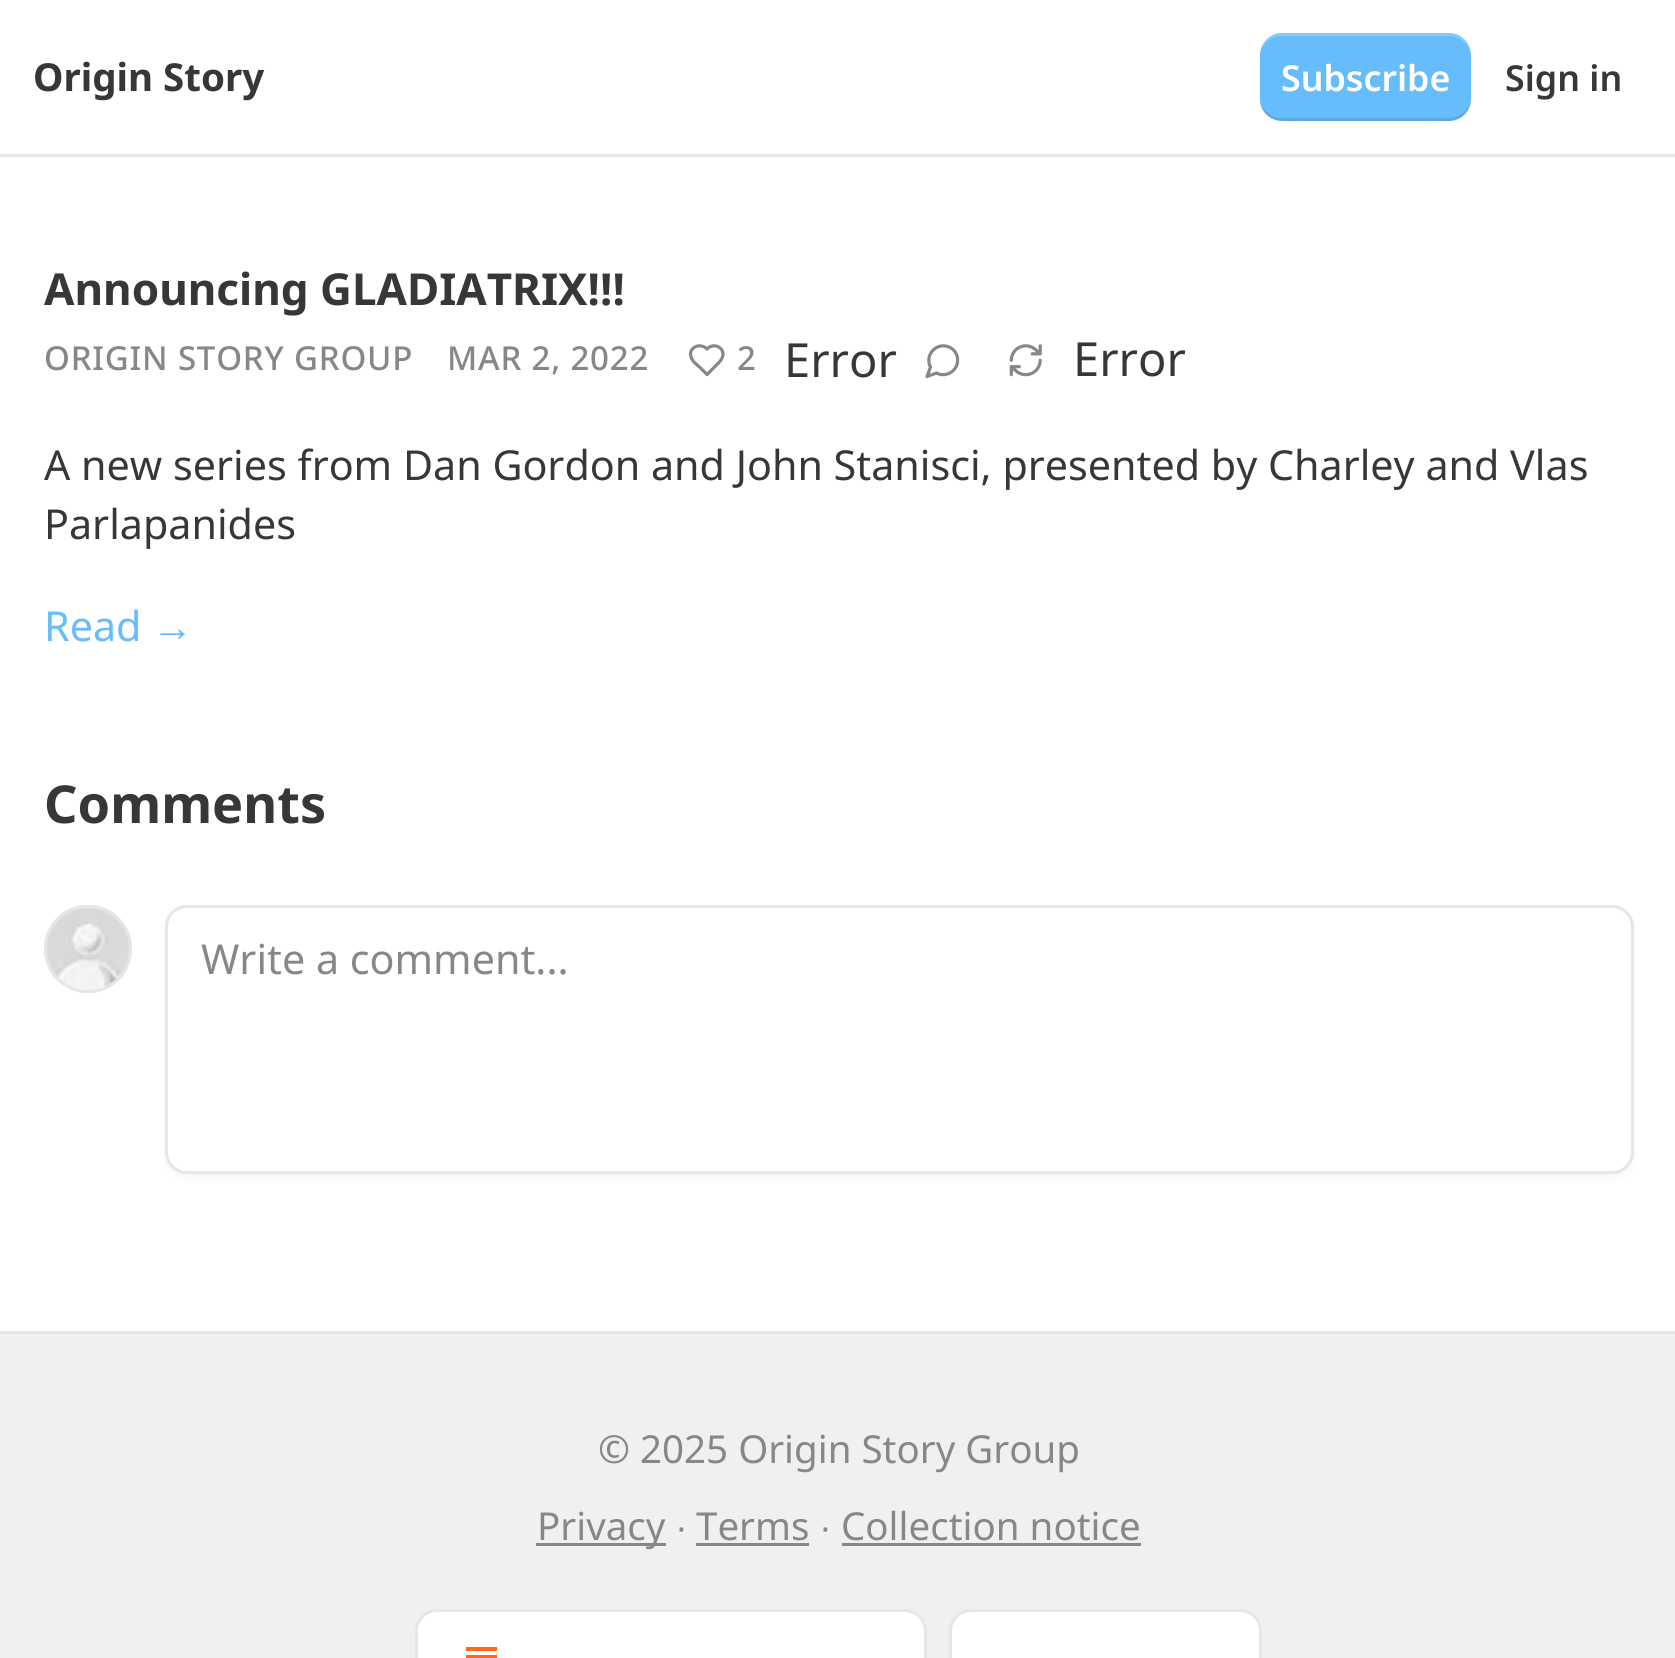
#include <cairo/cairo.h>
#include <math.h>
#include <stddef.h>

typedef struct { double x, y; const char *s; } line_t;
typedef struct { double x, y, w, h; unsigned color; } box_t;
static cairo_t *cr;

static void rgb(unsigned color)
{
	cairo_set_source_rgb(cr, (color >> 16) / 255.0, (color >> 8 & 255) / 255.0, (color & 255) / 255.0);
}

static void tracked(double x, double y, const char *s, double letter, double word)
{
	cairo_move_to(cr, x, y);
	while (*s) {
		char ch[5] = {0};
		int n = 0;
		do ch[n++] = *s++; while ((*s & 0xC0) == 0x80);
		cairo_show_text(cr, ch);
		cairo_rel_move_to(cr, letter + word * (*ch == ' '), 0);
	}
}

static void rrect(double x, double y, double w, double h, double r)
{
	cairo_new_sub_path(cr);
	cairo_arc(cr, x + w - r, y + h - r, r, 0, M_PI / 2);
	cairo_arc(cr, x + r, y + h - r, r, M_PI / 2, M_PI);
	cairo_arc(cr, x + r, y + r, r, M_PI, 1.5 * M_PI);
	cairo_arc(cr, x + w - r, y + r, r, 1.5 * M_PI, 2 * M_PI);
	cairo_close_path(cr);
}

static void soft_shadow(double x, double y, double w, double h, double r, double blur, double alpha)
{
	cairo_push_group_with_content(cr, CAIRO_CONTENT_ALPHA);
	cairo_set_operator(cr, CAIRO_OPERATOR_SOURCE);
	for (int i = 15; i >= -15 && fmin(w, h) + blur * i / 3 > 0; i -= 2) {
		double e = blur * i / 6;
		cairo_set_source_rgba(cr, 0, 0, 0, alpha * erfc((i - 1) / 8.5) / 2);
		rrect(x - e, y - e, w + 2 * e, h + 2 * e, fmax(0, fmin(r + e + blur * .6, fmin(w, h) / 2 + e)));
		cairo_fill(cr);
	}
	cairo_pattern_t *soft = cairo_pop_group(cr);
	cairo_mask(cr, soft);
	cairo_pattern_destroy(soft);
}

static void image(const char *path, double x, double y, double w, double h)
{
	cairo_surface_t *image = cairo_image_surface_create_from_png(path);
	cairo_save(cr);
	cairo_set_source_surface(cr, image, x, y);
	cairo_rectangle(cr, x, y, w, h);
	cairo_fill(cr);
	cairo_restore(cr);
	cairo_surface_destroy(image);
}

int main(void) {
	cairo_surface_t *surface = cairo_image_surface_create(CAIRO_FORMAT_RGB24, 1675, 1658);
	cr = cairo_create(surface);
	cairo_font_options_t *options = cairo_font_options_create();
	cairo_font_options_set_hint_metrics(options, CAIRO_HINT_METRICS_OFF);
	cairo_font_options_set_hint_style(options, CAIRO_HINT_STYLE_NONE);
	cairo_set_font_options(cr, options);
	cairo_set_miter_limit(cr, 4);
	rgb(0xffffff);
	cairo_paint(cr);
	rgb(0xe6e6e6);
	cairo_rectangle(cr, 0, 154, 1675, 3);
	cairo_fill(cr);
	rgb(0x67bdfc);
	rrect(1260, 33, 211, 88, 22);
	cairo_fill(cr);
	cairo_set_source_rgba(cr, 0, 0, 0, 0.1);
	cairo_new_path(cr);
	cairo_move_to(cr, 1260, 96);
	cairo_curve_to(cr, 1260, 127, 1287, 121, 1310, 121);
	cairo_line_to(cr, 1421, 121);
	cairo_curve_to(cr, 1444, 121, 1471, 127, 1471, 96);
	cairo_curve_to(cr, 1471, 108, 1461, 118, 1449, 118);
	cairo_line_to(cr, 1282, 118);
	cairo_curve_to(cr, 1269, 118, 1260, 108, 1260, 96);
	cairo_close_path(cr);
	cairo_fill(cr);
	cairo_set_source_rgba(cr, 1, 1, 1, 0.2);
	cairo_new_path(cr);
	cairo_move_to(cr, 1282, 36);
	cairo_line_to(cr, 1449, 36);
	cairo_curve_to(cr, 1461, 36, 1471, 46, 1471, 58);
	cairo_curve_to(cr, 1471, 27, 1444, 33, 1421, 33);
	cairo_line_to(cr, 1310, 33);
	cairo_curve_to(cr, 1287, 33, 1260, 27, 1260, 58);
	cairo_curve_to(cr, 1260, 46, 1269, 36, 1282, 36);
	cairo_close_path(cr);
	cairo_fill(cr);
	cairo_new_path(cr);
	cairo_move_to(cr, 718, 363.5);
	cairo_curve_to(cr, 720, 361.5, 721.5, 359.5, 722.5, 357);
	cairo_curve_to(cr, 725.5, 347.5, 713.5, 342, 707, 349);
	cairo_curve_to(cr, 700, 342, 688, 347.5, 691, 357);
	cairo_curve_to(cr, 692.5, 361.5, 696.5, 364.5, 699.5, 367);
	cairo_line_to(cr, 707, 374.5);
	cairo_close_path(cr);
	rgb(0x868787);
	cairo_set_line_width(cr, 3.2);
	cairo_set_line_cap(cr, CAIRO_LINE_CAP_ROUND);
	cairo_set_line_join(cr, CAIRO_LINE_JOIN_ROUND);
	cairo_stroke(cr);
	cairo_new_path(cr);
	cairo_move_to(cr, 936.5, 373);
	cairo_curve_to(cr, 943, 376.5, 950.5, 374.5, 955, 368.5);
	cairo_curve_to(cr, 959, 363, 958.5, 355, 953.5, 350);
	cairo_curve_to(cr, 948.5, 345, 940.5, 344.5, 935, 348.5);
	cairo_curve_to(cr, 929, 353, 927, 360.5, 930.5, 367);
	cairo_line_to(cr, 927, 376.5);
	cairo_close_path(cr);
	cairo_stroke(cr);
	image("img/1.png", 1009, 344, 33, 33);
	cairo_arc(cr, 88, 949, 42.5, 0, 2 * M_PI);
	rgb(0xe6e6e6);
	cairo_set_line_width(cr, 3);
	cairo_set_line_cap(cr, CAIRO_LINE_CAP_BUTT);
	cairo_set_line_join(cr, CAIRO_LINE_JOIN_MITER);
	cairo_stroke(cr);
	image("img/2.png", 44, 905, 88, 87);
	cairo_arc(cr, 88, 949, 42.5, 0, 2 * M_PI);
	cairo_stroke(cr);
	rgb(0x000000);
	soft_shadow(165, 908, 1469, 269, 22, 3, 0.05);
	rgb(0xffffff);
	rrect(166.5, 906.5, 1466, 266, 20.5);
	cairo_fill_preserve(cr);
	rgb(0xe6e6e6);
	cairo_stroke(cr);
	{
		static const box_t items[] = {
			{0, 1334, 1675, 324, 0xf0f0f0},
			{0, 1331, 1675, 3, 0xe6e6e6},
			{536, 1543, 130, 3, 0x868787},
			{696, 1543, 113, 3, 0x868787},
			{842, 1543, 299, 3, 0x868787},
		};
		for (size_t i = 0; i < sizeof items / sizeof *items; i++) {
			rgb(items[i].color);
			cairo_rectangle(cr, items[i].x, items[i].y, items[i].w, items[i].h);
			cairo_fill(cr);
		}
	}
	rgb(0xffffff);
	rrect(416.5, 1610.5, 509, 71, 20.5);
	cairo_fill_preserve(cr);
	rgb(0xe6e6e6);
	cairo_stroke(cr);
	rgb(0xff6719);
	cairo_rectangle(cr, 466, 1655, 31, 3);
	cairo_fill(cr);
	cairo_rectangle(cr, 466, 1647, 31, 4);
	cairo_fill(cr);
	rgb(0xffffff);
	rrect(950.5, 1610.5, 310, 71, 20.5);
	cairo_fill_preserve(cr);
	rgb(0xe6e6e6);
	cairo_stroke(cr);
	cairo_select_font_face(cr, "Noto Sans", CAIRO_FONT_SLANT_NORMAL, CAIRO_FONT_WEIGHT_BOLD);
	cairo_set_font_size(cr, 38.5);
	rgb(0x363737);
	cairo_move_to(cr, 33, 91);
	cairo_show_text(cr, "Origin Story");
	cairo_select_font_face(cr, "Noto Sans SemiBold", CAIRO_FONT_SLANT_NORMAL, CAIRO_FONT_WEIGHT_NORMAL);
	cairo_set_font_size(cr, 35.75);
	rgb(0xffffff);
	cairo_move_to(cr, 1281, 91);
	cairo_show_text(cr, "Subscribe");
	rgb(0x363737);
	cairo_move_to(cr, 1505, 91);
	cairo_show_text(cr, "Sign in");
	cairo_select_font_face(cr, "Noto Sans", CAIRO_FONT_SLANT_NORMAL, CAIRO_FONT_WEIGHT_BOLD);
	cairo_set_font_size(cr, 44);
	cairo_move_to(cr, 44, 305);
	cairo_show_text(cr, "Announcing GLADIATRIX!!!");
	cairo_select_font_face(cr, "Noto Sans Medium", CAIRO_FONT_SLANT_NORMAL, CAIRO_FONT_WEIGHT_NORMAL);
	cairo_set_font_size(cr, 33);
	rgb(0x868787);
	{
		static const line_t items[] = {
			{44, 370, "ORIGIN STORY GROUP"},
			{447, 370, "MAR 2, 2022"},
			{737, 370, "2"},
		};
		for (size_t i = 0; i < sizeof items / sizeof *items; i++) {
			tracked(items[i].x, items[i].y, items[i].s, 0.8, 0);
		}
	}
	cairo_select_font_face(cr, "Noto Sans", CAIRO_FONT_SLANT_NORMAL, CAIRO_FONT_WEIGHT_NORMAL);
	cairo_set_font_size(cr, 47);
	rgb(0x363737);
	cairo_move_to(cr, 784, 377);
	cairo_show_text(cr, "Error");
	cairo_move_to(cr, 1073, 376);
	cairo_show_text(cr, "Error");
	cairo_set_font_size(cr, 41.25);
	cairo_move_to(cr, 44, 480);
	cairo_show_text(cr, "A new series from Dan Gordon and John Stanisci, presented by Charley and Vlas");
	cairo_move_to(cr, 44, 539);
	cairo_show_text(cr, "Parlapanides");
	rgb(0x67bdfc);
	cairo_move_to(cr, 44, 641);
	cairo_show_text(cr, "Read");
	cairo_select_font_face(cr, "Liberation Sans", CAIRO_FONT_SLANT_NORMAL, CAIRO_FONT_WEIGHT_NORMAL);
	cairo_move_to(cr, 152, 641);
	cairo_show_text(cr, "→");
	cairo_select_font_face(cr, "Noto Sans", CAIRO_FONT_SLANT_NORMAL, CAIRO_FONT_WEIGHT_BOLD);
	cairo_set_font_size(cr, 52.25);
	rgb(0x363737);
	cairo_move_to(cr, 44, 823);
	cairo_show_text(cr, "Comments");
	cairo_select_font_face(cr, "Noto Sans", CAIRO_FONT_SLANT_NORMAL, CAIRO_FONT_WEIGHT_NORMAL);
	cairo_set_font_size(cr, 41.25);
	rgb(0x868787);
	cairo_move_to(cr, 201, 974);
	cairo_show_text(cr, "Write a comment...");
	cairo_set_font_size(cr, 38.5);
	cairo_move_to(cr, 598, 1463);
	cairo_show_text(cr, "© 2025 Origin Story Group");
	cairo_move_to(cr, 537, 1540);
	cairo_show_text(cr, "Privacy");
	cairo_select_font_face(cr, "Liberation Sans", CAIRO_FONT_SLANT_NORMAL, CAIRO_FONT_WEIGHT_NORMAL);
	cairo_move_to(cr, 676, 1540);
	cairo_show_text(cr, "∙");
	cairo_select_font_face(cr, "Noto Sans", CAIRO_FONT_SLANT_NORMAL, CAIRO_FONT_WEIGHT_NORMAL);
	cairo_move_to(cr, 696, 1540);
	cairo_show_text(cr, "Terms");
	cairo_select_font_face(cr, "Liberation Sans", CAIRO_FONT_SLANT_NORMAL, CAIRO_FONT_WEIGHT_NORMAL);
	cairo_move_to(cr, 820, 1540);
	cairo_show_text(cr, "∙");
	cairo_select_font_face(cr, "Noto Sans", CAIRO_FONT_SLANT_NORMAL, CAIRO_FONT_WEIGHT_NORMAL);
	cairo_move_to(cr, 841, 1540);
	cairo_show_text(cr, "Collection notice");
	cairo_surface_write_to_png(surface, "page.png");
	cairo_font_options_destroy(options);
	cairo_destroy(cr);
	cairo_surface_destroy(surface);
	return 0;
}
